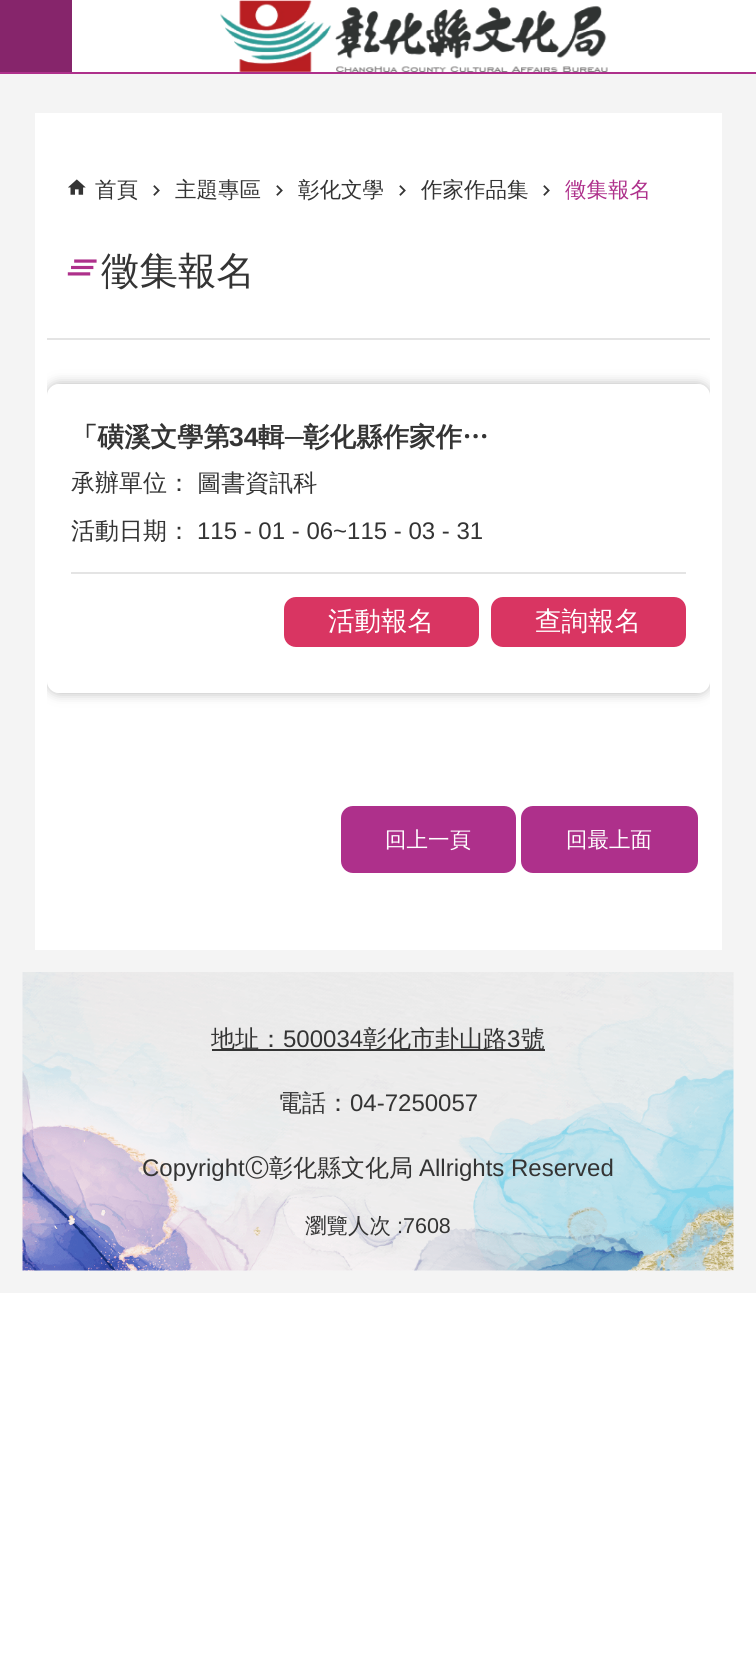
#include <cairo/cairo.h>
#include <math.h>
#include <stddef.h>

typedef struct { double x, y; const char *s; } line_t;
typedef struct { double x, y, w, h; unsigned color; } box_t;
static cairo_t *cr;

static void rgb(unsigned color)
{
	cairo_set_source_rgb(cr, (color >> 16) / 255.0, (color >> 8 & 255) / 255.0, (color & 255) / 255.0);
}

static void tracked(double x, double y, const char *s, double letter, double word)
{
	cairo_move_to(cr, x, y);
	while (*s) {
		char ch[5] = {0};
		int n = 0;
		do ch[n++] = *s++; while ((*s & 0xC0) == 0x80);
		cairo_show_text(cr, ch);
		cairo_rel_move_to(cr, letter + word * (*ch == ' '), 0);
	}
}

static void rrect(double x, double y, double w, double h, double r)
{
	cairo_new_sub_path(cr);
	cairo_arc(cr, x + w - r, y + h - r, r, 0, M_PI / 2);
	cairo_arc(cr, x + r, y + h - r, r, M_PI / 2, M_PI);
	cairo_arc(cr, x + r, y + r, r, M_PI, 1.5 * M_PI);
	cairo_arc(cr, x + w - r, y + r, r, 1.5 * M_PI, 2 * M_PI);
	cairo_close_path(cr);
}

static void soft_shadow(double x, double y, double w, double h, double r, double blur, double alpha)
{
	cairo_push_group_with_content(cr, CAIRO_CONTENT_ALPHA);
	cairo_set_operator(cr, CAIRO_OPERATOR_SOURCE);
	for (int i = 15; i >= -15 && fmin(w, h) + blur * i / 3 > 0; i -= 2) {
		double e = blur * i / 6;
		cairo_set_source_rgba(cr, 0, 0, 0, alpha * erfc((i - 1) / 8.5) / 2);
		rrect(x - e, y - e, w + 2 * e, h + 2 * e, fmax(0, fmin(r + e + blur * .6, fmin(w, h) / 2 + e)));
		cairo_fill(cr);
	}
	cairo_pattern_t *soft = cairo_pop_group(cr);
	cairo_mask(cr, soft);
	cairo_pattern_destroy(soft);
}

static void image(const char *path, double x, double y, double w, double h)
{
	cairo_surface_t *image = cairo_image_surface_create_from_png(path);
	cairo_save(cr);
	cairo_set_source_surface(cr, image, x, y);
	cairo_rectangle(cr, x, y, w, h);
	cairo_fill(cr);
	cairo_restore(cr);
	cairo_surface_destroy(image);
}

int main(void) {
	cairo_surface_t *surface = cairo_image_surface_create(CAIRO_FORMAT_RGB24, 756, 1655);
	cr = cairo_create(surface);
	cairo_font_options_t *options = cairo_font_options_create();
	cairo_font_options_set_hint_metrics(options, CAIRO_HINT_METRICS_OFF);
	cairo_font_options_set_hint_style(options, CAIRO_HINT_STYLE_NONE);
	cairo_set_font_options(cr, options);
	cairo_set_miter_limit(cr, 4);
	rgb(0xffffff);
	cairo_paint(cr);
	{
		static const box_t items[] = {
			{0, 74, 756, 1219, 0xf4f4f4},
			{0, 0, 72, 72, 0x86256b},
			{0, 72, 756, 2, 0xae308b},
		};
		for (size_t i = 0; i < sizeof items / sizeof *items; i++) {
			rgb(items[i].color);
			cairo_rectangle(cr, items[i].x, items[i].y, items[i].w, items[i].h);
			cairo_fill(cr);
		}
	}
	image("img/1.png", 220, 0, 388, 72);
	rgb(0xffffff);
	cairo_rectangle(cr, 35, 113, 687, 837);
	cairo_fill(cr);
	image("img/2.png", 68, 179, 18, 16);
	image("img/3.png", 153, 185, 7, 11);
	image("img/3.png", 276, 185, 7, 11);
	image("img/3.png", 399, 185, 7, 11);
	image("img/3.png", 543, 185, 7, 11);
	rgb(0xe4e4e4);
	cairo_rectangle(cr, 47, 338, 663, 2);
	cairo_fill(cr);
	image("img/4.png", 67, 259, 30, 17);
	cairo_save(cr);
	cairo_rectangle(cr, 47, 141, 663, 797);
	cairo_clip(cr);
	cairo_set_fill_rule(cr, CAIRO_FILL_RULE_EVEN_ODD);
	cairo_new_path(cr);
	cairo_move_to(cr, 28, 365);
	cairo_line_to(cr, 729, 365);
	cairo_line_to(cr, 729, 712);
	cairo_line_to(cr, 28, 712);
	cairo_close_path(cr);
	cairo_move_to(cr, 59, 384);
	cairo_line_to(cr, 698, 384);
	cairo_curve_to(cr, 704.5, 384, 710, 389.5, 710, 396);
	cairo_line_to(cr, 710, 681);
	cairo_curve_to(cr, 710, 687.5, 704.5, 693, 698, 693);
	cairo_line_to(cr, 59, 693);
	cairo_curve_to(cr, 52.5, 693, 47, 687.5, 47, 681);
	cairo_line_to(cr, 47, 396);
	cairo_curve_to(cr, 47, 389.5, 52.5, 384, 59, 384);
	cairo_close_path(cr);
	cairo_clip(cr);
	rgb(0xb6b6b6);
	soft_shadow(47, 384, 663, 309, 12, 6, 1);
	cairo_restore(cr);
	cairo_rectangle(cr, 71, 572, 615, 2);
	cairo_fill(cr);
	rgb(0xd93562);
	rrect(284, 597, 195, 50, 12);
	cairo_fill(cr);
	rrect(491, 597, 195, 50, 12);
	cairo_fill(cr);
	rgb(0xae308b);
	rrect(341, 806, 175, 67, 12);
	cairo_fill(cr);
	rrect(521, 806, 177, 67, 12);
	cairo_fill(cr);
	image("img/5.png", 22, 972, 712, 299);
	rgb(0x343434);
	cairo_rectangle(cr, 212, 1049, 333, 2);
	cairo_fill(cr);
	cairo_select_font_face(cr, "WenQuanYi Zen Hei Medium", CAIRO_FONT_SLANT_NORMAL, CAIRO_FONT_WEIGHT_NORMAL);
	cairo_set_font_size(cr, 21.5);
	{
		static const line_t items[] = {
			{95, 197, "首頁"},
			{175, 197, "主題專區"},
			{298, 197, "彰化文學"},
			{421, 197, "作家作品集"},
		};
		for (size_t i = 0; i < sizeof items / sizeof *items; i++) {
			cairo_move_to(cr, items[i].x, items[i].y);
			cairo_show_text(cr, items[i].s);
		}
	}
	rgb(0xae308b);
	cairo_move_to(cr, 565, 197);
	cairo_show_text(cr, "徵集報名");
	cairo_set_font_size(cr, 38.5);
	rgb(0x343434);
	cairo_move_to(cr, 101, 284);
	cairo_show_text(cr, "徵集報名");
	cairo_select_font_face(cr, "WenQuanYi Zen Hei", CAIRO_FONT_SLANT_NORMAL, CAIRO_FONT_WEIGHT_BOLD);
	cairo_set_font_size(cr, 26.5);
	cairo_move_to(cr, 71, 446);
	cairo_show_text(cr, "「磺溪文學第");
	cairo_select_font_face(cr, "Liberation Sans", CAIRO_FONT_SLANT_NORMAL, CAIRO_FONT_WEIGHT_BOLD);
	cairo_move_to(cr, 229, 446);
	cairo_show_text(cr, "34");
	cairo_select_font_face(cr, "WenQuanYi Zen Hei", CAIRO_FONT_SLANT_NORMAL, CAIRO_FONT_WEIGHT_BOLD);
	cairo_move_to(cr, 258, 446);
	cairo_show_text(cr, "輯");
	cairo_select_font_face(cr, "Liberation Sans", CAIRO_FONT_SLANT_NORMAL, CAIRO_FONT_WEIGHT_BOLD);
	cairo_move_to(cr, 285, 446);
	cairo_show_text(cr, "─");
	cairo_select_font_face(cr, "WenQuanYi Zen Hei", CAIRO_FONT_SLANT_NORMAL, CAIRO_FONT_WEIGHT_BOLD);
	cairo_move_to(cr, 303, 446);
	cairo_show_text(cr, "彰化縣作家作…");
	cairo_select_font_face(cr, "WenQuanYi Zen Hei Medium", CAIRO_FONT_SLANT_NORMAL, CAIRO_FONT_WEIGHT_NORMAL);
	cairo_set_font_size(cr, 24);
	tracked(71, 491, "承辦單位： 圖書資訊科", 0, -1);
	cairo_move_to(cr, 71, 539);
	cairo_show_text(cr, "活動日期：");
	cairo_select_font_face(cr, "Liberation Sans", CAIRO_FONT_SLANT_NORMAL, CAIRO_FONT_WEIGHT_NORMAL);
	cairo_move_to(cr, 197, 539);
	cairo_show_text(cr, "115 - 01 - 06~115 - 03 - 31");
	cairo_select_font_face(cr, "WenQuanYi Zen Hei Medium", CAIRO_FONT_SLANT_NORMAL, CAIRO_FONT_WEIGHT_NORMAL);
	cairo_set_font_size(cr, 26.5);
	rgb(0xffffff);
	cairo_move_to(cr, 328, 630);
	cairo_show_text(cr, "活動報名");
	cairo_move_to(cr, 535, 630);
	cairo_show_text(cr, "查詢報名");
	cairo_set_font_size(cr, 21.5);
	cairo_move_to(cr, 385, 847);
	cairo_show_text(cr, "回上一頁");
	cairo_move_to(cr, 566, 847);
	cairo_show_text(cr, "回最上面");
	cairo_set_font_size(cr, 24);
	rgb(0x343434);
	cairo_move_to(cr, 211, 1047);
	cairo_show_text(cr, "地址：");
	cairo_select_font_face(cr, "Liberation Sans", CAIRO_FONT_SLANT_NORMAL, CAIRO_FONT_WEIGHT_NORMAL);
	cairo_move_to(cr, 283, 1047);
	cairo_show_text(cr, "500034");
	cairo_select_font_face(cr, "WenQuanYi Zen Hei Medium", CAIRO_FONT_SLANT_NORMAL, CAIRO_FONT_WEIGHT_NORMAL);
	cairo_move_to(cr, 363, 1047);
	cairo_show_text(cr, "彰化市卦山路");
	cairo_select_font_face(cr, "Liberation Sans", CAIRO_FONT_SLANT_NORMAL, CAIRO_FONT_WEIGHT_NORMAL);
	cairo_move_to(cr, 507, 1047);
	cairo_show_text(cr, "3");
	cairo_select_font_face(cr, "WenQuanYi Zen Hei Medium", CAIRO_FONT_SLANT_NORMAL, CAIRO_FONT_WEIGHT_NORMAL);
	cairo_move_to(cr, 521, 1047);
	cairo_show_text(cr, "號");
	cairo_move_to(cr, 278, 1111);
	cairo_show_text(cr, "電話：");
	cairo_select_font_face(cr, "Liberation Sans", CAIRO_FONT_SLANT_NORMAL, CAIRO_FONT_WEIGHT_NORMAL);
	cairo_move_to(cr, 350, 1111);
	cairo_show_text(cr, "04-7250057");
	cairo_move_to(cr, 142, 1176);
	cairo_show_text(cr, "Copyright");
	cairo_select_font_face(cr, "WenQuanYi Zen Hei Medium", CAIRO_FONT_SLANT_NORMAL, CAIRO_FONT_WEIGHT_NORMAL);
	cairo_move_to(cr, 245, 1176);
	cairo_show_text(cr, "Ⓒ彰化縣文化局");
	cairo_select_font_face(cr, "Liberation Sans", CAIRO_FONT_SLANT_NORMAL, CAIRO_FONT_WEIGHT_NORMAL);
	cairo_move_to(cr, 419, 1176);
	cairo_show_text(cr, "Allrights Reserved");
	cairo_select_font_face(cr, "WenQuanYi Zen Hei Medium", CAIRO_FONT_SLANT_NORMAL, CAIRO_FONT_WEIGHT_NORMAL);
	cairo_set_font_size(cr, 21.5);
	cairo_move_to(cr, 305, 1233);
	cairo_show_text(cr, "瀏覽人次");
	cairo_select_font_face(cr, "Liberation Sans", CAIRO_FONT_SLANT_NORMAL, CAIRO_FONT_WEIGHT_NORMAL);
	cairo_move_to(cr, 397, 1233);
	cairo_show_text(cr, ":7608");
	cairo_surface_write_to_png(surface, "page.png");
	cairo_font_options_destroy(options);
	cairo_destroy(cr);
	cairo_surface_destroy(surface);
	return 0;
}
